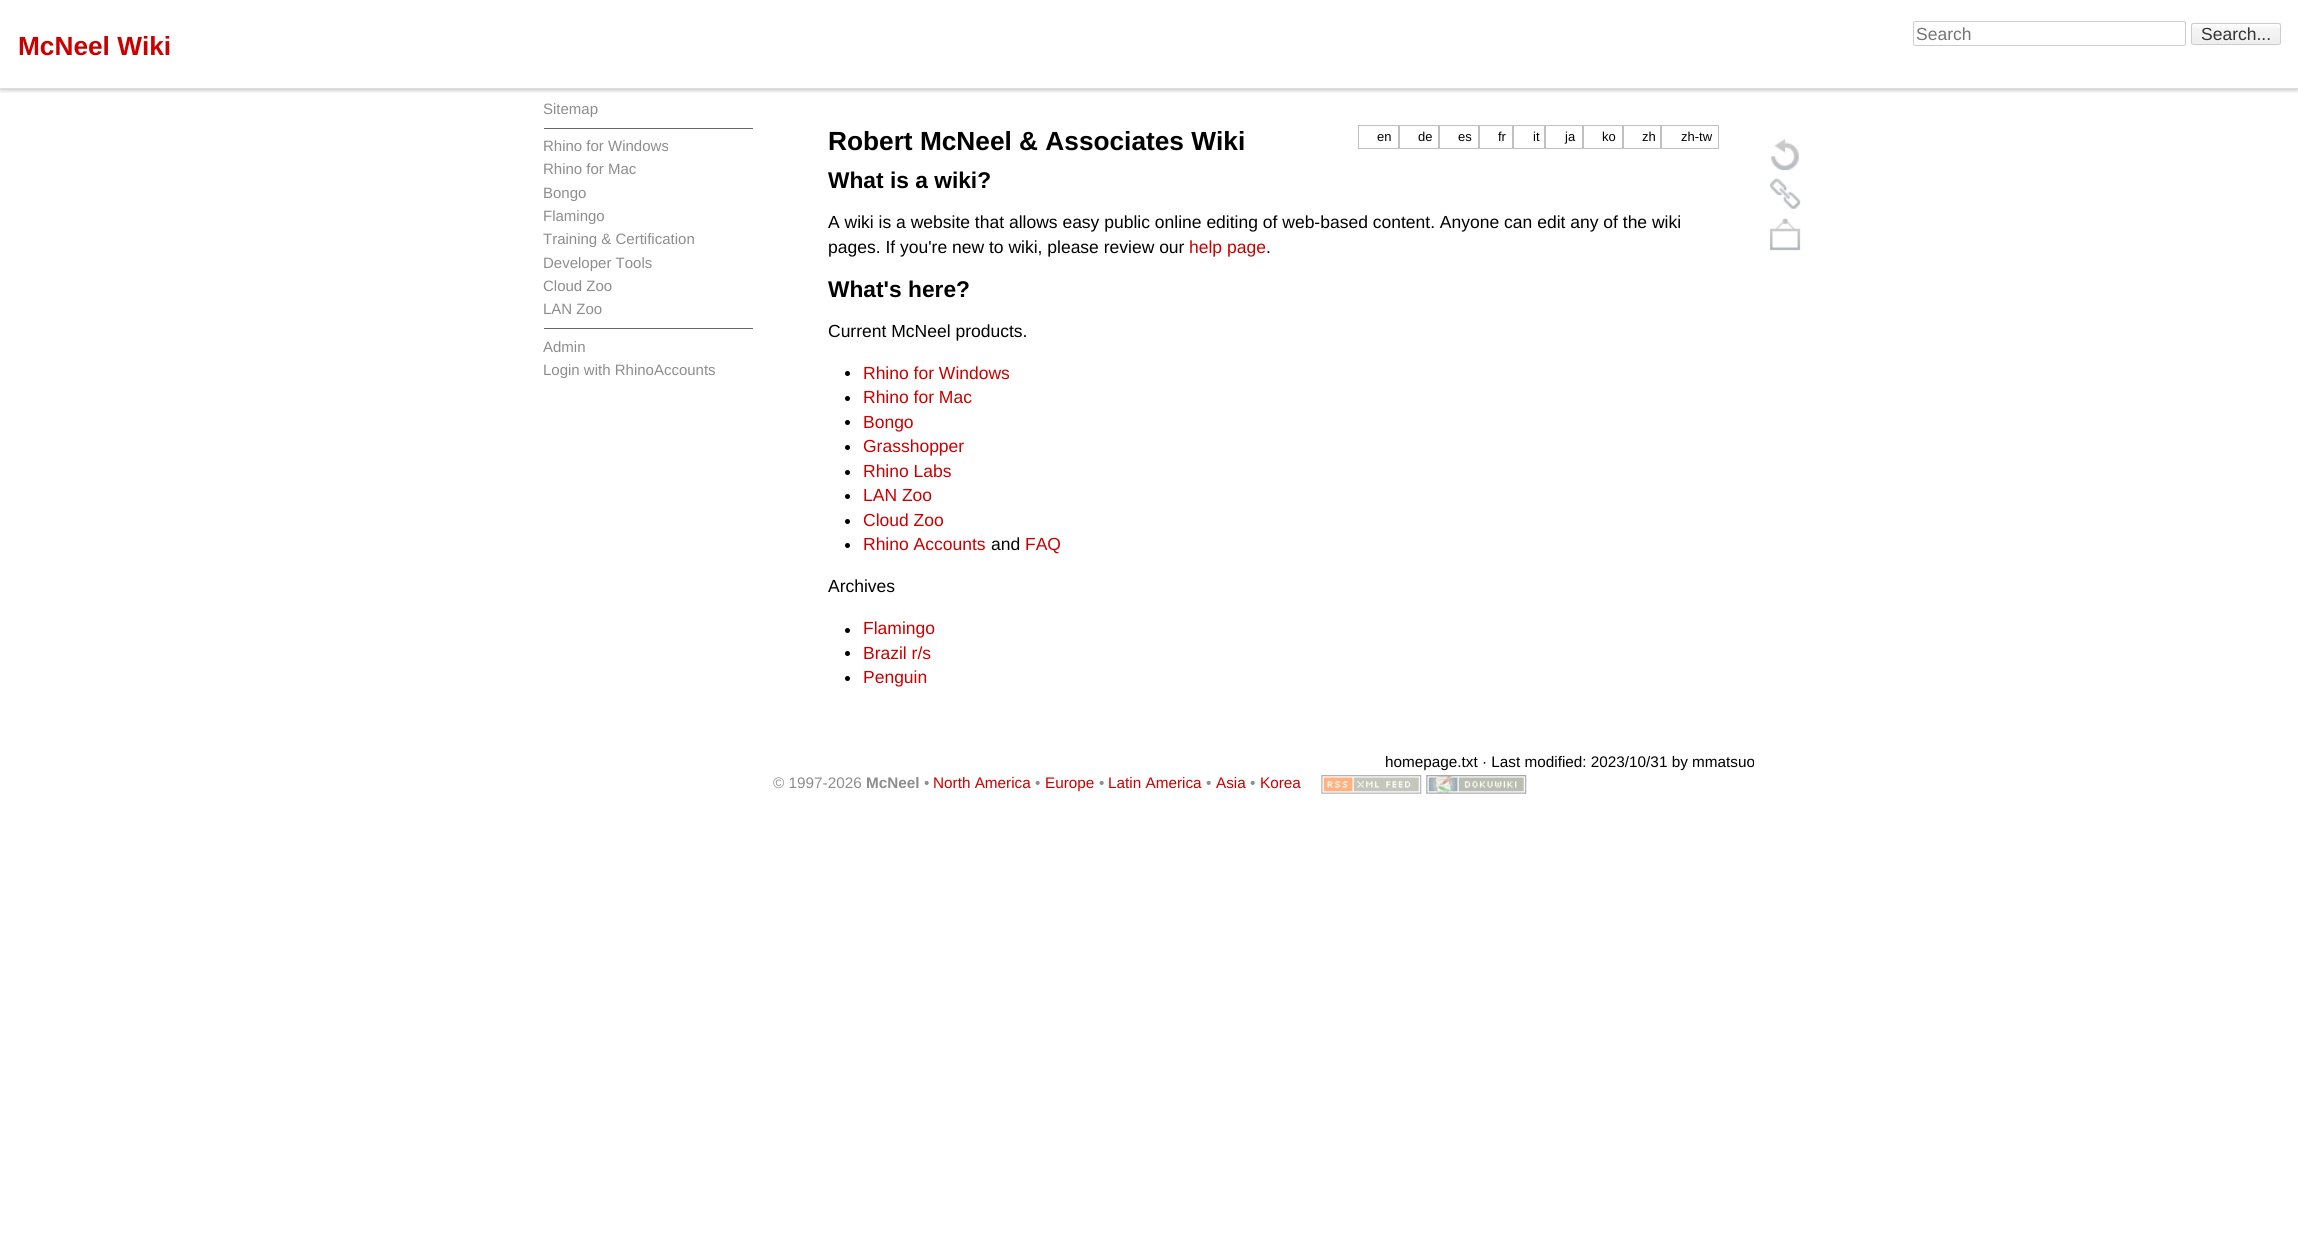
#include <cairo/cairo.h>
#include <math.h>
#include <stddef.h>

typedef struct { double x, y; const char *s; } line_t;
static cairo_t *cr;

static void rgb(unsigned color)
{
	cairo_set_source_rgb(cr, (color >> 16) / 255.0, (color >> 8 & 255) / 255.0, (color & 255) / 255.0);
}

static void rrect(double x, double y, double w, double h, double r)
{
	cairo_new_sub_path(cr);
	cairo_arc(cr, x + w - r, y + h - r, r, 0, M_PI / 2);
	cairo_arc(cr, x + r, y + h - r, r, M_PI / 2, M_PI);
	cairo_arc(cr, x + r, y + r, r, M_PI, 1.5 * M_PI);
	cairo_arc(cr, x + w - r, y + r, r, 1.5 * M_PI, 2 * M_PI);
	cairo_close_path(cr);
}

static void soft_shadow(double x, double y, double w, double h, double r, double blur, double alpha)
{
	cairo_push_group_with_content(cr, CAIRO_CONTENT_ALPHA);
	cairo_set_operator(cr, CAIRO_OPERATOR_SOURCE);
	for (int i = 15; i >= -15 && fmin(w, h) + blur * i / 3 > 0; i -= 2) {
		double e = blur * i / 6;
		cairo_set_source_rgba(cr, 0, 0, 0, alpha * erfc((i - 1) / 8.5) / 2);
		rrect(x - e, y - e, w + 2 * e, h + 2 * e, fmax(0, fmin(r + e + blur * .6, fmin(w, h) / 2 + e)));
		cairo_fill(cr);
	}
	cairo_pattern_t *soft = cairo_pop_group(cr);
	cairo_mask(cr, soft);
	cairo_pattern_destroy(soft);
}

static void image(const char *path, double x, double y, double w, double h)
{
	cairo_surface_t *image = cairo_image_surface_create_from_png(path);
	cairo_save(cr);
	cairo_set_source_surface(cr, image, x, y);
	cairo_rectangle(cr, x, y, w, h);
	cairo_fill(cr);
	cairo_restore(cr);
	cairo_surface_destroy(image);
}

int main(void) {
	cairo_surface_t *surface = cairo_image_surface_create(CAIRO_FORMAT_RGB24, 2298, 1252);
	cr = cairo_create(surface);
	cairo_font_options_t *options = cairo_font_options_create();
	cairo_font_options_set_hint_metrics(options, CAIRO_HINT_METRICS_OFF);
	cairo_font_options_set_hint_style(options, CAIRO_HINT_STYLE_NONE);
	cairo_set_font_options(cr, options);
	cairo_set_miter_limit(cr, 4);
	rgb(0xffffff);
	cairo_paint(cr);
	cairo_save(cr);
	cairo_rectangle(cr, 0, 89, 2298, 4);
	cairo_clip(cr);
	rgb(0x000000);
	soft_shadow(1, 4, 2297, 86, 0, 2.5, 0.25);
	cairo_restore(cr);
	rgb(0xdddddd);
	cairo_rectangle(cr, 0, 88, 2298, 1);
	cairo_fill(cr);
	rrect(1913.5, 21.5, 272, 24, 2);
	rgb(0xcccccc);
	cairo_set_line_width(cr, 1);
	cairo_stroke(cr);
	image("img/1.png", 2191, 22, 90, 23);
	rrect(2191.5, 23.5, 89, 21, 2);
	cairo_stroke(cr);
	rgb(0x666666);
	cairo_rectangle(cr, 544, 128, 209, 1);
	cairo_fill(cr);
	cairo_rectangle(cr, 544, 328, 209, 1);
	cairo_fill(cr);
	cairo_rectangle(cr, 1358.5, 125.5, 40, 23);
	rgb(0xc0c0c0);
	cairo_stroke(cr);
	cairo_rectangle(cr, 1399.5, 125.5, 39, 23);
	cairo_stroke(cr);
	cairo_rectangle(cr, 1439.5, 125.5, 39, 23);
	cairo_stroke(cr);
	cairo_rectangle(cr, 1479.5, 125.5, 33, 23);
	cairo_stroke(cr);
	cairo_rectangle(cr, 1513.5, 125.5, 31, 23);
	cairo_stroke(cr);
	cairo_rectangle(cr, 1545.5, 125.5, 37, 23);
	cairo_stroke(cr);
	cairo_rectangle(cr, 1583.5, 125.5, 39, 23);
	cairo_stroke(cr);
	cairo_rectangle(cr, 1623.5, 125.5, 37, 23);
	cairo_stroke(cr);
	cairo_rectangle(cr, 1661.5, 125.5, 57, 23);
	cairo_stroke(cr);
	rgb(0x000000);
	cairo_arc(cr, 847.5, 373.5, 2.5, 0, 2 * M_PI);
	cairo_fill(cr);
	cairo_arc(cr, 847.5, 398.5, 2.5, 0, 2 * M_PI);
	cairo_fill(cr);
	cairo_arc(cr, 847.5, 422.5, 2.5, 0, 2 * M_PI);
	cairo_fill(cr);
	cairo_arc(cr, 847.5, 447.5, 2.5, 0, 2 * M_PI);
	cairo_fill(cr);
	cairo_arc(cr, 847.5, 472.5, 2.5, 0, 2 * M_PI);
	cairo_fill(cr);
	cairo_arc(cr, 847.5, 496.5, 2.5, 0, 2 * M_PI);
	cairo_fill(cr);
	cairo_arc(cr, 847.5, 521.5, 2.5, 0, 2 * M_PI);
	cairo_fill(cr);
	cairo_arc(cr, 847.5, 545.5, 2.5, 0, 2 * M_PI);
	cairo_fill(cr);
	cairo_arc(cr, 847.5, 630.5, 2.5, 0, 2 * M_PI);
	cairo_fill(cr);
	cairo_arc(cr, 847.5, 653.5, 2.5, 0, 2 * M_PI);
	cairo_fill(cr);
	cairo_arc(cr, 847.5, 678.5, 2.5, 0, 2 * M_PI);
	cairo_fill(cr);
	image("img/2.png", 1771, 138, 28, 33);
	image("img/3.png", 1769, 178, 32, 31);
	image("img/4.png", 1769, 218, 32, 33);
	image("img/5.png", 1321, 775, 101, 19);
	image("img/6.png", 1426, 775, 101, 19);
	cairo_select_font_face(cr, "Liberation Sans", CAIRO_FONT_SLANT_NORMAL, CAIRO_FONT_WEIGHT_NORMAL);
	cairo_set_font_size(cr, 17.5);
	rgb(0x757575);
	cairo_move_to(cr, 1916, 40);
	cairo_show_text(cr, "Search");
	rgb(0x333333);
	cairo_move_to(cr, 2201, 40);
	cairo_show_text(cr, "Search...");
	cairo_select_font_face(cr, "Liberation Sans", CAIRO_FONT_SLANT_NORMAL, CAIRO_FONT_WEIGHT_BOLD);
	cairo_set_font_size(cr, 26.25);
	rgb(0xca0000);
	cairo_move_to(cr, 18, 55);
	cairo_show_text(cr, "McNeel Wiki");
	cairo_select_font_face(cr, "Liberation Sans", CAIRO_FONT_SLANT_NORMAL, CAIRO_FONT_WEIGHT_NORMAL);
	cairo_set_font_size(cr, 15);
	rgb(0x8d8d8d);
	{
		static const line_t items[] = {
			{543, 114, "Sitemap"},
			{543, 151, "Rhino for Windows"},
			{543, 174, "Rhino for Mac"},
			{543, 198, "Bongo"},
			{543, 221, "Flamingo"},
			{543, 244, "Training & Certification"},
			{543, 268, "Developer Tools"},
			{543, 291, "Cloud Zoo"},
			{543, 314, "LAN Zoo"},
			{543, 352, "Admin"},
			{543, 375, "Login with RhinoAccounts"},
		};
		for (size_t i = 0; i < sizeof items / sizeof *items; i++) {
			cairo_move_to(cr, items[i].x, items[i].y);
			cairo_show_text(cr, items[i].s);
		}
	}
	cairo_select_font_face(cr, "Liberation Sans", CAIRO_FONT_SLANT_NORMAL, CAIRO_FONT_WEIGHT_BOLD);
	cairo_set_font_size(cr, 26.25);
	rgb(0x000000);
	cairo_move_to(cr, 828, 150);
	cairo_show_text(cr, "Robert McNeel & Associates Wiki");
	cairo_select_font_face(cr, "Liberation Sans", CAIRO_FONT_SLANT_NORMAL, CAIRO_FONT_WEIGHT_NORMAL);
	cairo_set_font_size(cr, 13);
	{
		static const line_t items[] = {
			{1377, 141, "en"},
			{1418, 141, "de"},
			{1458, 141, "es"},
			{1498, 141, "fr"},
			{1533, 141, "it"},
			{1565, 141, "ja"},
			{1602, 141, "ko"},
			{1642, 141, "zh"},
			{1681, 141, "zh-tw"},
		};
		for (size_t i = 0; i < sizeof items / sizeof *items; i++) {
			cairo_move_to(cr, items[i].x, items[i].y);
			cairo_show_text(cr, items[i].s);
		}
	}
	cairo_select_font_face(cr, "Liberation Sans", CAIRO_FONT_SLANT_NORMAL, CAIRO_FONT_WEIGHT_BOLD);
	cairo_set_font_size(cr, 22.75);
	cairo_move_to(cr, 828, 188);
	cairo_show_text(cr, "What is a wiki?");
	cairo_select_font_face(cr, "Liberation Sans", CAIRO_FONT_SLANT_NORMAL, CAIRO_FONT_WEIGHT_NORMAL);
	cairo_set_font_size(cr, 17.5);
	cairo_move_to(cr, 828, 228);
	cairo_show_text(cr, "A wiki is a website that allows easy public online editing of web-based content. Anyone can edit any of the wiki");
	cairo_move_to(cr, 828, 253);
	cairo_show_text(cr, "pages. If you're new to wiki, please review our");
	rgb(0xca0000);
	cairo_move_to(cr, 1189, 253);
	cairo_show_text(cr, "help page");
	rgb(0x000000);
	cairo_move_to(cr, 1266, 253);
	cairo_show_text(cr, ".");
	cairo_select_font_face(cr, "Liberation Sans", CAIRO_FONT_SLANT_NORMAL, CAIRO_FONT_WEIGHT_BOLD);
	cairo_set_font_size(cr, 22.75);
	cairo_move_to(cr, 828, 297);
	cairo_show_text(cr, "What's here?");
	cairo_select_font_face(cr, "Liberation Sans", CAIRO_FONT_SLANT_NORMAL, CAIRO_FONT_WEIGHT_NORMAL);
	cairo_set_font_size(cr, 17.5);
	cairo_move_to(cr, 828, 337);
	cairo_show_text(cr, "Current McNeel products.");
	rgb(0xca0000);
	{
		static const line_t items[] = {
			{863, 379, "Rhino for Windows"},
			{863, 403, "Rhino for Mac"},
			{863, 428, "Bongo"},
			{863, 452, "Grasshopper"},
			{863, 477, "Rhino Labs"},
			{863, 501, "LAN Zoo"},
			{863, 526, "Cloud Zoo"},
			{863, 550, "Rhino Accounts"},
		};
		for (size_t i = 0; i < sizeof items / sizeof *items; i++) {
			cairo_move_to(cr, items[i].x, items[i].y);
			cairo_show_text(cr, items[i].s);
		}
	}
	rgb(0x000000);
	cairo_move_to(cr, 991, 550);
	cairo_show_text(cr, "and");
	rgb(0xca0000);
	cairo_move_to(cr, 1025, 550);
	cairo_show_text(cr, "FAQ");
	rgb(0x000000);
	cairo_move_to(cr, 828, 592);
	cairo_show_text(cr, "Archives");
	rgb(0xca0000);
	{
		static const line_t items[] = {
			{863, 634, "Flamingo"},
			{863, 659, "Brazil r/s"},
			{863, 683, "Penguin"},
		};
		for (size_t i = 0; i < sizeof items / sizeof *items; i++) {
			cairo_move_to(cr, items[i].x, items[i].y);
			cairo_show_text(cr, items[i].s);
		}
	}
	cairo_set_font_size(cr, 15.3);
	rgb(0x000000);
	cairo_move_to(cr, 1385, 767);
	cairo_show_text(cr, "homepage.txt · Last modified: 2023/10/31 by mmatsuo");
	rgb(0x8d8d8d);
	cairo_move_to(cr, 773, 788);
	cairo_show_text(cr, "© 1997-2026");
	cairo_select_font_face(cr, "Liberation Sans", CAIRO_FONT_SLANT_NORMAL, CAIRO_FONT_WEIGHT_BOLD);
	cairo_move_to(cr, 866, 788);
	cairo_show_text(cr, "McNeel");
	cairo_select_font_face(cr, "Liberation Sans", CAIRO_FONT_SLANT_NORMAL, CAIRO_FONT_WEIGHT_NORMAL);
	cairo_move_to(cr, 924, 788);
	cairo_show_text(cr, "•");
	rgb(0xca0000);
	cairo_move_to(cr, 933, 788);
	cairo_show_text(cr, "North America");
	rgb(0x8d8d8d);
	cairo_move_to(cr, 1035, 788);
	cairo_show_text(cr, "•");
	rgb(0xca0000);
	cairo_move_to(cr, 1045, 788);
	cairo_show_text(cr, "Europe");
	rgb(0x8d8d8d);
	cairo_move_to(cr, 1099, 788);
	cairo_show_text(cr, "•");
	rgb(0xca0000);
	cairo_move_to(cr, 1108, 788);
	cairo_show_text(cr, "Latin America");
	rgb(0x8d8d8d);
	cairo_move_to(cr, 1206, 788);
	cairo_show_text(cr, "•");
	rgb(0xca0000);
	cairo_move_to(cr, 1216, 788);
	cairo_show_text(cr, "Asia");
	rgb(0x8d8d8d);
	cairo_move_to(cr, 1250, 788);
	cairo_show_text(cr, "•");
	rgb(0xca0000);
	cairo_move_to(cr, 1260, 788);
	cairo_show_text(cr, "Korea");
	cairo_surface_write_to_png(surface, "page.png");
	cairo_font_options_destroy(options);
	cairo_destroy(cr);
	cairo_surface_destroy(surface);
	return 0;
}
